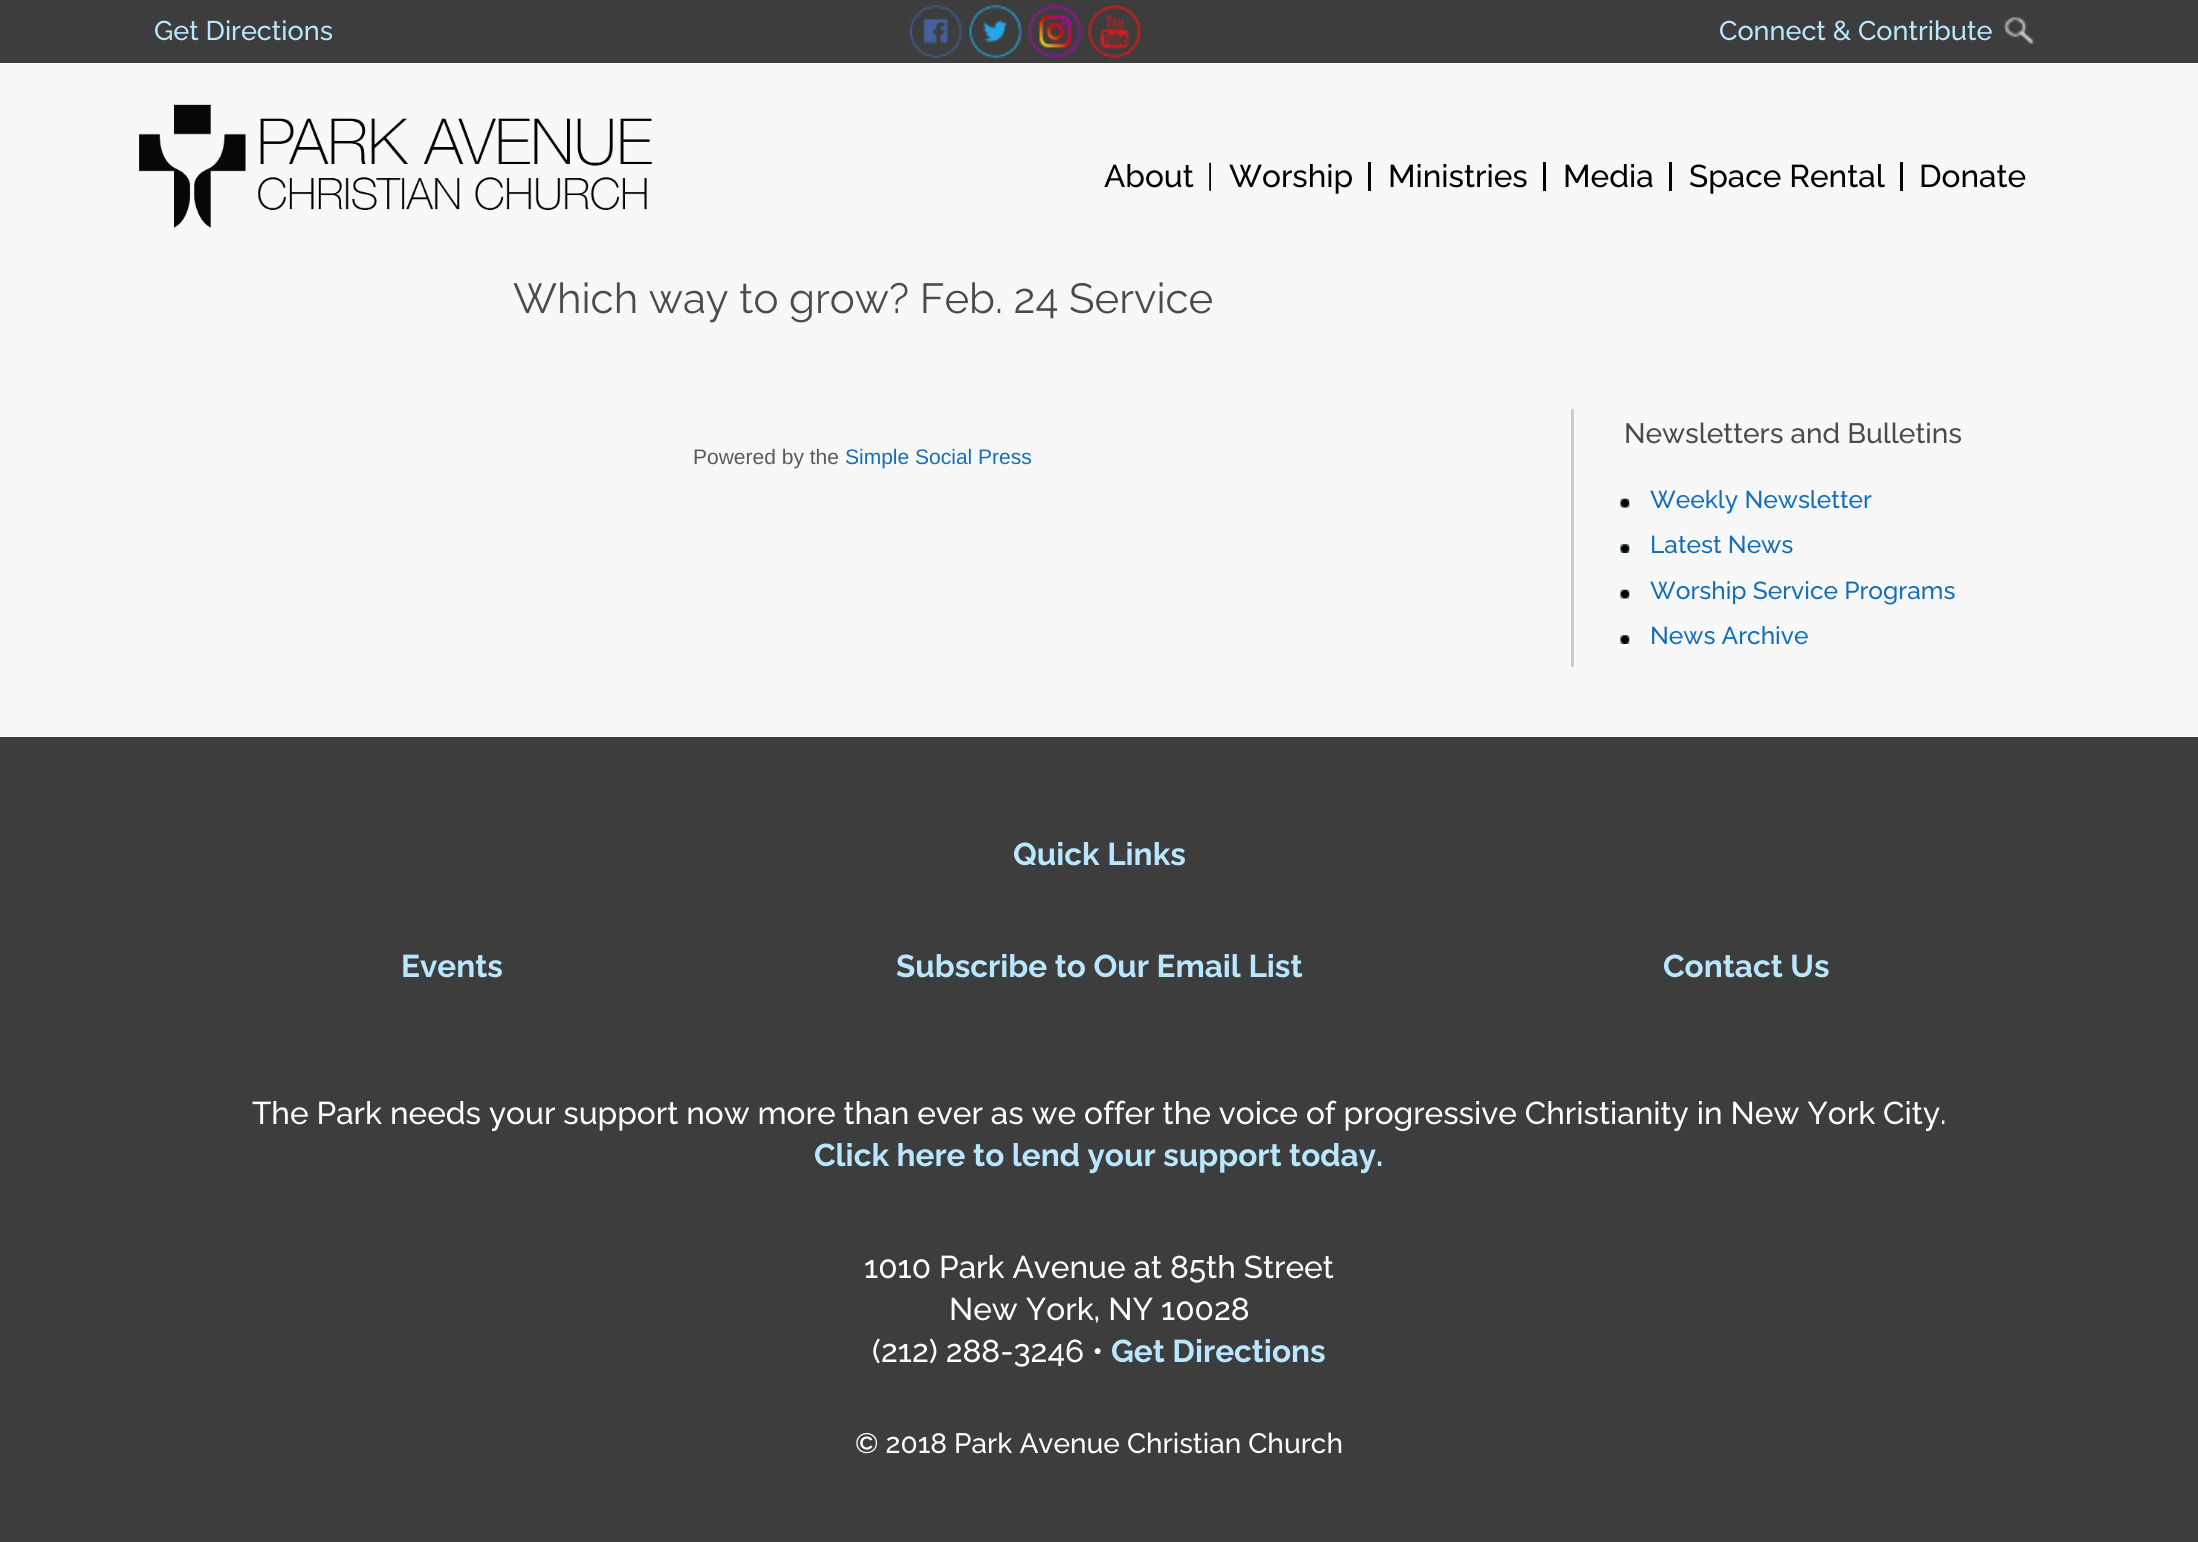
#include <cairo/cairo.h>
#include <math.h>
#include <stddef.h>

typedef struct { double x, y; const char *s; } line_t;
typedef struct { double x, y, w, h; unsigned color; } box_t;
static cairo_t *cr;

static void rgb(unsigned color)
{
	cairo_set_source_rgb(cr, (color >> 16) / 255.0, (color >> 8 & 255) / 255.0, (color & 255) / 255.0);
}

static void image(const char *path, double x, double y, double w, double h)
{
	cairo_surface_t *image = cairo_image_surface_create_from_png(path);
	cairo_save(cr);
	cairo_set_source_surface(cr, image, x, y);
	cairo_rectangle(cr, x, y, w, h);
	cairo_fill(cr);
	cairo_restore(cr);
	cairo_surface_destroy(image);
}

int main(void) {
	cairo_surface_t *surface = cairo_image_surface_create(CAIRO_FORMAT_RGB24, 2198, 1542);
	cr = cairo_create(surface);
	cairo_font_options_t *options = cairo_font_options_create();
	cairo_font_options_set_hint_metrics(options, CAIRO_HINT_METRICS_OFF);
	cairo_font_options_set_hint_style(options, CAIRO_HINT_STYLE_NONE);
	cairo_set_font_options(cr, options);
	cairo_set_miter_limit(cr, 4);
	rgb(0xf8f8f8);
	cairo_paint(cr);
	rgb(0x3d3d3d);
	cairo_rectangle(cr, 0, 0, 2198, 63);
	cairo_fill(cr);
	image("img/1.png", 910, 5, 53, 53);
	image("img/2.png", 969, 5, 53, 53);
	image("img/3.png", 1029, 5, 53, 53);
	image("img/4.png", 1088, 5, 53, 53);
	image("img/5.png", 2003, 17, 31, 28);
	image("img/6.png", 139, 104, 513, 124);
	image("img/7.png", 1209, 162, 2, 29);
	{
		static const box_t items[] = {
			{1368, 162, 3, 29, 0x000000},
			{1543, 162, 3, 29, 0x000000},
			{1669, 162, 3, 29, 0x000000},
			{1900, 162, 3, 29, 0x000000},
			{1571, 409, 3, 258, 0xcccccc},
		};
		for (size_t i = 0; i < sizeof items / sizeof *items; i++) {
			rgb(items[i].color);
			cairo_rectangle(cr, items[i].x, items[i].y, items[i].w, items[i].h);
			cairo_fill(cr);
		}
	}
	image("img/8.png", 1620, 498, 10, 10);
	image("img/9.png", 1620, 544, 10, 9);
	image("img/8.png", 1620, 589, 10, 10);
	image("img/9.png", 1620, 635, 10, 9);
	rgb(0x3d3d3d);
	cairo_rectangle(cr, 0, 737, 2198, 805);
	cairo_fill(cr);
	cairo_select_font_face(cr, "Raleway Medium", CAIRO_FONT_SLANT_NORMAL, CAIRO_FONT_WEIGHT_NORMAL);
	cairo_set_font_size(cr, 27);
	rgb(0xb8e7ff);
	cairo_move_to(cr, 154, 40);
	cairo_show_text(cr, "Get Directions");
	cairo_move_to(cr, 1719, 40);
	cairo_show_text(cr, "Connect & Contribute");
	cairo_set_font_size(cr, 31.5);
	rgb(0x000000);
	{
		static const line_t items[] = {
			{1104, 187, "About"},
			{1229, 187, "Worship"},
			{1388, 187, "Ministries"},
			{1563, 187, "Media"},
			{1689, 187, "Space Rental"},
			{1919, 187, "Donate"},
		};
		for (size_t i = 0; i < sizeof items / sizeof *items; i++) {
			cairo_move_to(cr, items[i].x, items[i].y);
			cairo_show_text(cr, items[i].s);
		}
	}
	cairo_select_font_face(cr, "Raleway", CAIRO_FONT_SLANT_NORMAL, CAIRO_FONT_WEIGHT_NORMAL);
	cairo_set_font_size(cr, 42);
	rgb(0x4b4b4b);
	cairo_move_to(cr, 513, 313);
	cairo_show_text(cr, "Which way to grow? Feb. 24 Service");
	cairo_select_font_face(cr, "Liberation Sans", CAIRO_FONT_SLANT_NORMAL, CAIRO_FONT_WEIGHT_NORMAL);
	cairo_set_font_size(cr, 21);
	rgb(0x5a5a5a);
	cairo_move_to(cr, 693, 464);
	cairo_show_text(cr, "Powered by the");
	rgb(0x146eba);
	cairo_move_to(cr, 845, 464);
	cairo_show_text(cr, "Simple Social Press");
	cairo_select_font_face(cr, "Raleway Medium", CAIRO_FONT_SLANT_NORMAL, CAIRO_FONT_WEIGHT_NORMAL);
	cairo_set_font_size(cr, 28);
	rgb(0x4b4b4b);
	cairo_move_to(cr, 1624, 443);
	cairo_show_text(cr, "Newsletters and Bulletins");
	cairo_set_font_size(cr, 24.5);
	rgb(0x146eba);
	{
		static const line_t items[] = {
			{1650, 508, "Weekly Newsletter"},
			{1650, 553, "Latest News"},
			{1650, 599, "Worship Service Programs"},
			{1650, 644, "News Archive"},
		};
		for (size_t i = 0; i < sizeof items / sizeof *items; i++) {
			cairo_move_to(cr, items[i].x, items[i].y);
			cairo_show_text(cr, items[i].s);
		}
	}
	cairo_select_font_face(cr, "Raleway", CAIRO_FONT_SLANT_NORMAL, CAIRO_FONT_WEIGHT_BOLD);
	cairo_set_font_size(cr, 31.5);
	rgb(0xb8e7ff);
	{
		static const line_t items[] = {
			{1013, 865, "Quick Links"},
			{401, 977, "Events"},
			{896, 977, "Subscribe to Our Email List"},
			{1663, 977, "Contact Us"},
		};
		for (size_t i = 0; i < sizeof items / sizeof *items; i++) {
			cairo_move_to(cr, items[i].x, items[i].y);
			cairo_show_text(cr, items[i].s);
		}
	}
	cairo_select_font_face(cr, "Raleway Medium", CAIRO_FONT_SLANT_NORMAL, CAIRO_FONT_WEIGHT_NORMAL);
	rgb(0xffffff);
	cairo_move_to(cr, 252, 1124);
	cairo_show_text(cr, "The Park needs your support now more than ever as we offer the voice of progressive Christianity in New York City.");
	cairo_select_font_face(cr, "Raleway", CAIRO_FONT_SLANT_NORMAL, CAIRO_FONT_WEIGHT_BOLD);
	rgb(0xb8e7ff);
	cairo_move_to(cr, 814, 1166);
	cairo_show_text(cr, "Click here to lend your support today.");
	cairo_select_font_face(cr, "Raleway Medium", CAIRO_FONT_SLANT_NORMAL, CAIRO_FONT_WEIGHT_NORMAL);
	rgb(0xffffff);
	{
		static const line_t items[] = {
			{864, 1278, "1010 Park Avenue at 85th Street"},
			{949, 1320, "New York, NY 10028"},
			{872, 1362, "(212) 288-3246 •"},
		};
		for (size_t i = 0; i < sizeof items / sizeof *items; i++) {
			cairo_move_to(cr, items[i].x, items[i].y);
			cairo_show_text(cr, items[i].s);
		}
	}
	cairo_select_font_face(cr, "Raleway", CAIRO_FONT_SLANT_NORMAL, CAIRO_FONT_WEIGHT_BOLD);
	rgb(0xb8e7ff);
	cairo_move_to(cr, 1111, 1362);
	cairo_show_text(cr, "Get Directions");
	cairo_select_font_face(cr, "Raleway Medium", CAIRO_FONT_SLANT_NORMAL, CAIRO_FONT_WEIGHT_NORMAL);
	cairo_set_font_size(cr, 28);
	rgb(0xffffff);
	cairo_move_to(cr, 855, 1453);
	cairo_show_text(cr, "© 2018 Park Avenue Christian Church");
	cairo_surface_write_to_png(surface, "page.png");
	cairo_font_options_destroy(options);
	cairo_destroy(cr);
	cairo_surface_destroy(surface);
	return 0;
}
